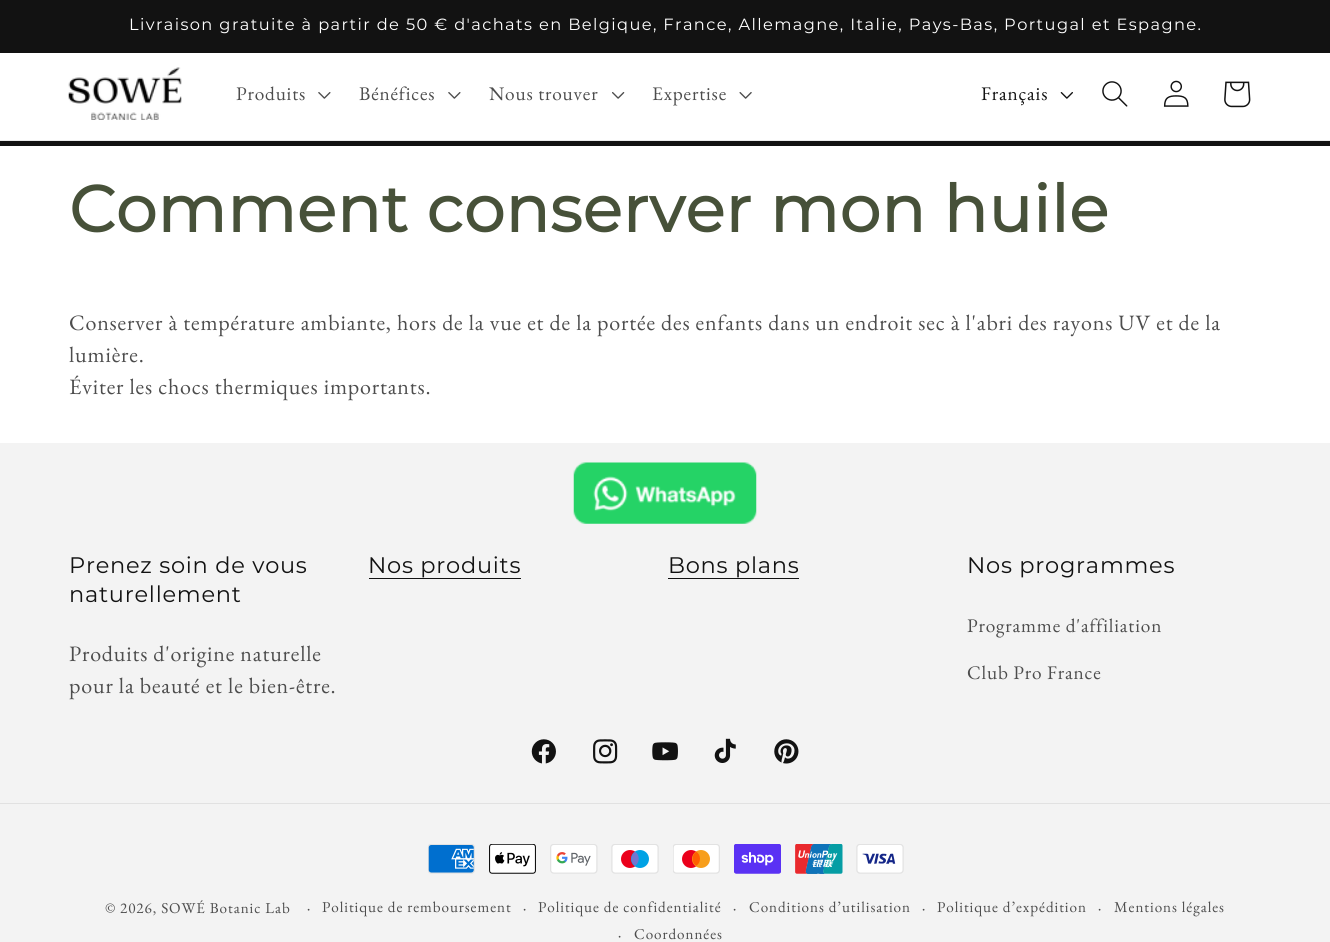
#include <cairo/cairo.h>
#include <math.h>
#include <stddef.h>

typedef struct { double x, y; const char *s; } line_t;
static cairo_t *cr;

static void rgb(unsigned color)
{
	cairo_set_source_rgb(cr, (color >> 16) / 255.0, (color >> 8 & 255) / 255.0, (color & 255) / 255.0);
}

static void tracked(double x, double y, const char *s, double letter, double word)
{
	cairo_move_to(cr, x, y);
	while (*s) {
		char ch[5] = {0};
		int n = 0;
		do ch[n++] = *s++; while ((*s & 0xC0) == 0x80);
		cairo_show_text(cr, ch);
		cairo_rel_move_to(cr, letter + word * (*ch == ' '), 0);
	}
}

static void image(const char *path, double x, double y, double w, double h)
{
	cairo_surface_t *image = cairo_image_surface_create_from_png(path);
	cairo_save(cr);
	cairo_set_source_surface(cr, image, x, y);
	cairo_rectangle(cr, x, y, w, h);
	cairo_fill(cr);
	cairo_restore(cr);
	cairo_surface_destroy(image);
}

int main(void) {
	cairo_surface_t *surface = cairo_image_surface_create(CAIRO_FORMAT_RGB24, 1330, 942);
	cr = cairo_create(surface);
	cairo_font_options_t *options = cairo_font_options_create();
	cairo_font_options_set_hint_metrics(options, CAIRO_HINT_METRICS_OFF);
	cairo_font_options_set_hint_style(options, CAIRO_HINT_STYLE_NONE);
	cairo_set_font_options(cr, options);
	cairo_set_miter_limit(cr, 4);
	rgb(0xffffff);
	cairo_paint(cr);
	rgb(0x121212);
	cairo_rectangle(cr, 0, 0, 1330, 53);
	cairo_fill(cr);
	rgb(0xececec);
	cairo_rectangle(cr, 0, 140, 1330, 1);
	cairo_fill(cr);
	image("img/1.png", 68, 67, 114, 53);
	image("img/2.png", 318, 92, 13, 7);
	image("img/2.png", 448, 92, 13, 7);
	image("img/3.png", 612, 92, 13, 7);
	image("img/4.png", 739, 92, 13, 7);
	image("img/5.png", 1060, 92, 13, 7);
	image("img/6.png", 1102, 81, 26, 26);
	image("img/7.png", 1163, 80, 26, 27);
	image("img/8.png", 1224, 81, 27, 27);
	rgb(0x121212);
	cairo_rectangle(cr, 0, 141, 1330, 5);
	cairo_fill(cr);
	rgb(0xf3f3f3);
	cairo_rectangle(cr, 0, 443, 1330, 499);
	cairo_fill(cr);
	image("img/9.png", 573, 462, 184, 62);
	rgb(0x121212);
	cairo_rectangle(cr, 369, 578, 152, 1);
	cairo_fill(cr);
	cairo_rectangle(cr, 668, 578, 131, 1);
	cairo_fill(cr);
	image("img/10.png", 531, 739, 25, 25);
	image("img/11.png", 593, 739, 25, 25);
	image("img/12.png", 652, 742, 26, 19);
	image("img/13.png", 714, 738, 22, 25);
	image("img/14.png", 774, 739, 25, 25);
	rgb(0xe1e1e1);
	cairo_rectangle(cr, 0, 803, 1330, 1);
	cairo_fill(cr);
	image("img/15.png", 428, 844, 47, 30);
	image("img/16.png", 489, 844, 47, 30);
	image("img/17.png", 550, 844, 48, 30);
	image("img/18.png", 611, 844, 48, 30);
	image("img/19.png", 673, 844, 47, 30);
	image("img/20.png", 734, 844, 47, 30);
	image("img/21.png", 795, 844, 48, 30);
	image("img/22.png", 856, 844, 48, 30);
	cairo_select_font_face(cr, "Montserrat Thin", CAIRO_FONT_SLANT_NORMAL, CAIRO_FONT_WEIGHT_NORMAL);
	cairo_set_font_size(cr, 16.25);
	rgb(0xffffff);
	tracked(129, 30, "Livraison gratuite à partir de 50 € d'achats en Belgique, France, Allemagne, Italie, Pays-Bas, Portugal et Espagne.", 1.38, 0);
	cairo_select_font_face(cr, "EB Garamond", CAIRO_FONT_SLANT_NORMAL, CAIRO_FONT_WEIGHT_NORMAL);
	cairo_set_font_size(cr, 19.25);
	rgb(0x4d4d4d);
	{
		static const line_t items[] = {
			{236, 100, "Produits"},
			{359, 100, "Bénéfices"},
			{489, 100, "Nous trouver"},
			{652, 100, "Expertise"},
		};
		for (size_t i = 0; i < sizeof items / sizeof *items; i++) {
			tracked(items[i].x, items[i].y, items[i].s, 0.83, 0);
		}
	}
	rgb(0x121212);
	tracked(981, 100, "Français", 0.83, 0);
	cairo_select_font_face(cr, "Montserrat", CAIRO_FONT_SLANT_NORMAL, CAIRO_FONT_WEIGHT_BOLD);
	cairo_set_font_size(cr, 65);
	rgb(0x475139);
	tracked(69, 232, "Comment conserver mon huile", 0.75, 0);
	cairo_select_font_face(cr, "EB Garamond", CAIRO_FONT_SLANT_NORMAL, CAIRO_FONT_WEIGHT_NORMAL);
	cairo_set_font_size(cr, 22);
	rgb(0x4d4d4d);
	{
		static const line_t items[] = {
			{69, 330, "Conserver à température ambiante, hors de la vue et de la portée des enfants dans un endroit sec à l'abri des rayons UV et de la"},
			{69, 362, "lumière."},
			{69, 394, "Éviter les chocs thermiques importants."},
		};
		for (size_t i = 0; i < sizeof items / sizeof *items; i++) {
			tracked(items[i].x, items[i].y, items[i].s, 0.83, 0);
		}
	}
	cairo_select_font_face(cr, "Montserrat Thin", CAIRO_FONT_SLANT_NORMAL, CAIRO_FONT_WEIGHT_NORMAL);
	cairo_set_font_size(cr, 22.5);
	rgb(0x121212);
	tracked(69, 573, "Prenez soin de vous", 0.75, 0);
	tracked(69, 602, "naturellement", 0.75, 0);
	cairo_select_font_face(cr, "EB Garamond", CAIRO_FONT_SLANT_NORMAL, CAIRO_FONT_WEIGHT_NORMAL);
	cairo_set_font_size(cr, 22);
	rgb(0x4d4d4d);
	tracked(69, 661, "Produits d'origine naturelle", 0.83, 0);
	tracked(69, 693, "pour la beauté et le bien-être.", 0.83, 0);
	cairo_select_font_face(cr, "Montserrat Thin", CAIRO_FONT_SLANT_NORMAL, CAIRO_FONT_WEIGHT_NORMAL);
	cairo_set_font_size(cr, 22.5);
	rgb(0x121212);
	{
		static const line_t items[] = {
			{368, 573, "Nos produits"},
			{668, 573, "Bons plans"},
			{967, 573, "Nos programmes"},
		};
		for (size_t i = 0; i < sizeof items / sizeof *items; i++) {
			tracked(items[i].x, items[i].y, items[i].s, 0.75, 0);
		}
	}
	cairo_select_font_face(cr, "EB Garamond", CAIRO_FONT_SLANT_NORMAL, CAIRO_FONT_WEIGHT_NORMAL);
	cairo_set_font_size(cr, 19.25);
	rgb(0x4d4d4d);
	tracked(967, 632, "Programme d'affiliation", 0.83, 0);
	tracked(967, 679, "Club Pro France", 0.83, 0);
	cairo_set_font_size(cr, 15.1);
	tracked(105, 913, "© 2026, SOWÉ Botanic Lab", 0.95, 0);
	cairo_set_font_size(cr, 16);
	tracked(307, 913, "·", 0.95, 0);
	cairo_set_font_size(cr, 15.1);
	tracked(322, 912, "Politique de remboursement", 0.95, 0);
	cairo_set_font_size(cr, 16);
	tracked(523, 913, "·", 0.95, 0);
	cairo_set_font_size(cr, 15.1);
	tracked(538, 912, "Politique de confidentialité", 0.95, 0);
	cairo_set_font_size(cr, 16);
	tracked(733, 913, "·", 0.95, 0);
	cairo_set_font_size(cr, 15.1);
	tracked(749, 912, "Conditions d’utilisation", 0.95, 0);
	cairo_set_font_size(cr, 16);
	tracked(922, 913, "·", 0.95, 0);
	cairo_set_font_size(cr, 15.1);
	tracked(937, 912, "Politique d’expédition", 0.95, 0);
	cairo_set_font_size(cr, 16);
	tracked(1098, 913, "·", 0.95, 0);
	cairo_set_font_size(cr, 15.1);
	tracked(1114, 912, "Mentions légales", 0.95, 0);
	cairo_set_font_size(cr, 16);
	tracked(618, 940, "·", 0.95, 0);
	cairo_set_font_size(cr, 15.1);
	tracked(634, 939, "Coordonnées", 0.95, 0);
	cairo_surface_write_to_png(surface, "page.png");
	cairo_font_options_destroy(options);
	cairo_destroy(cr);
	cairo_surface_destroy(surface);
	return 0;
}
